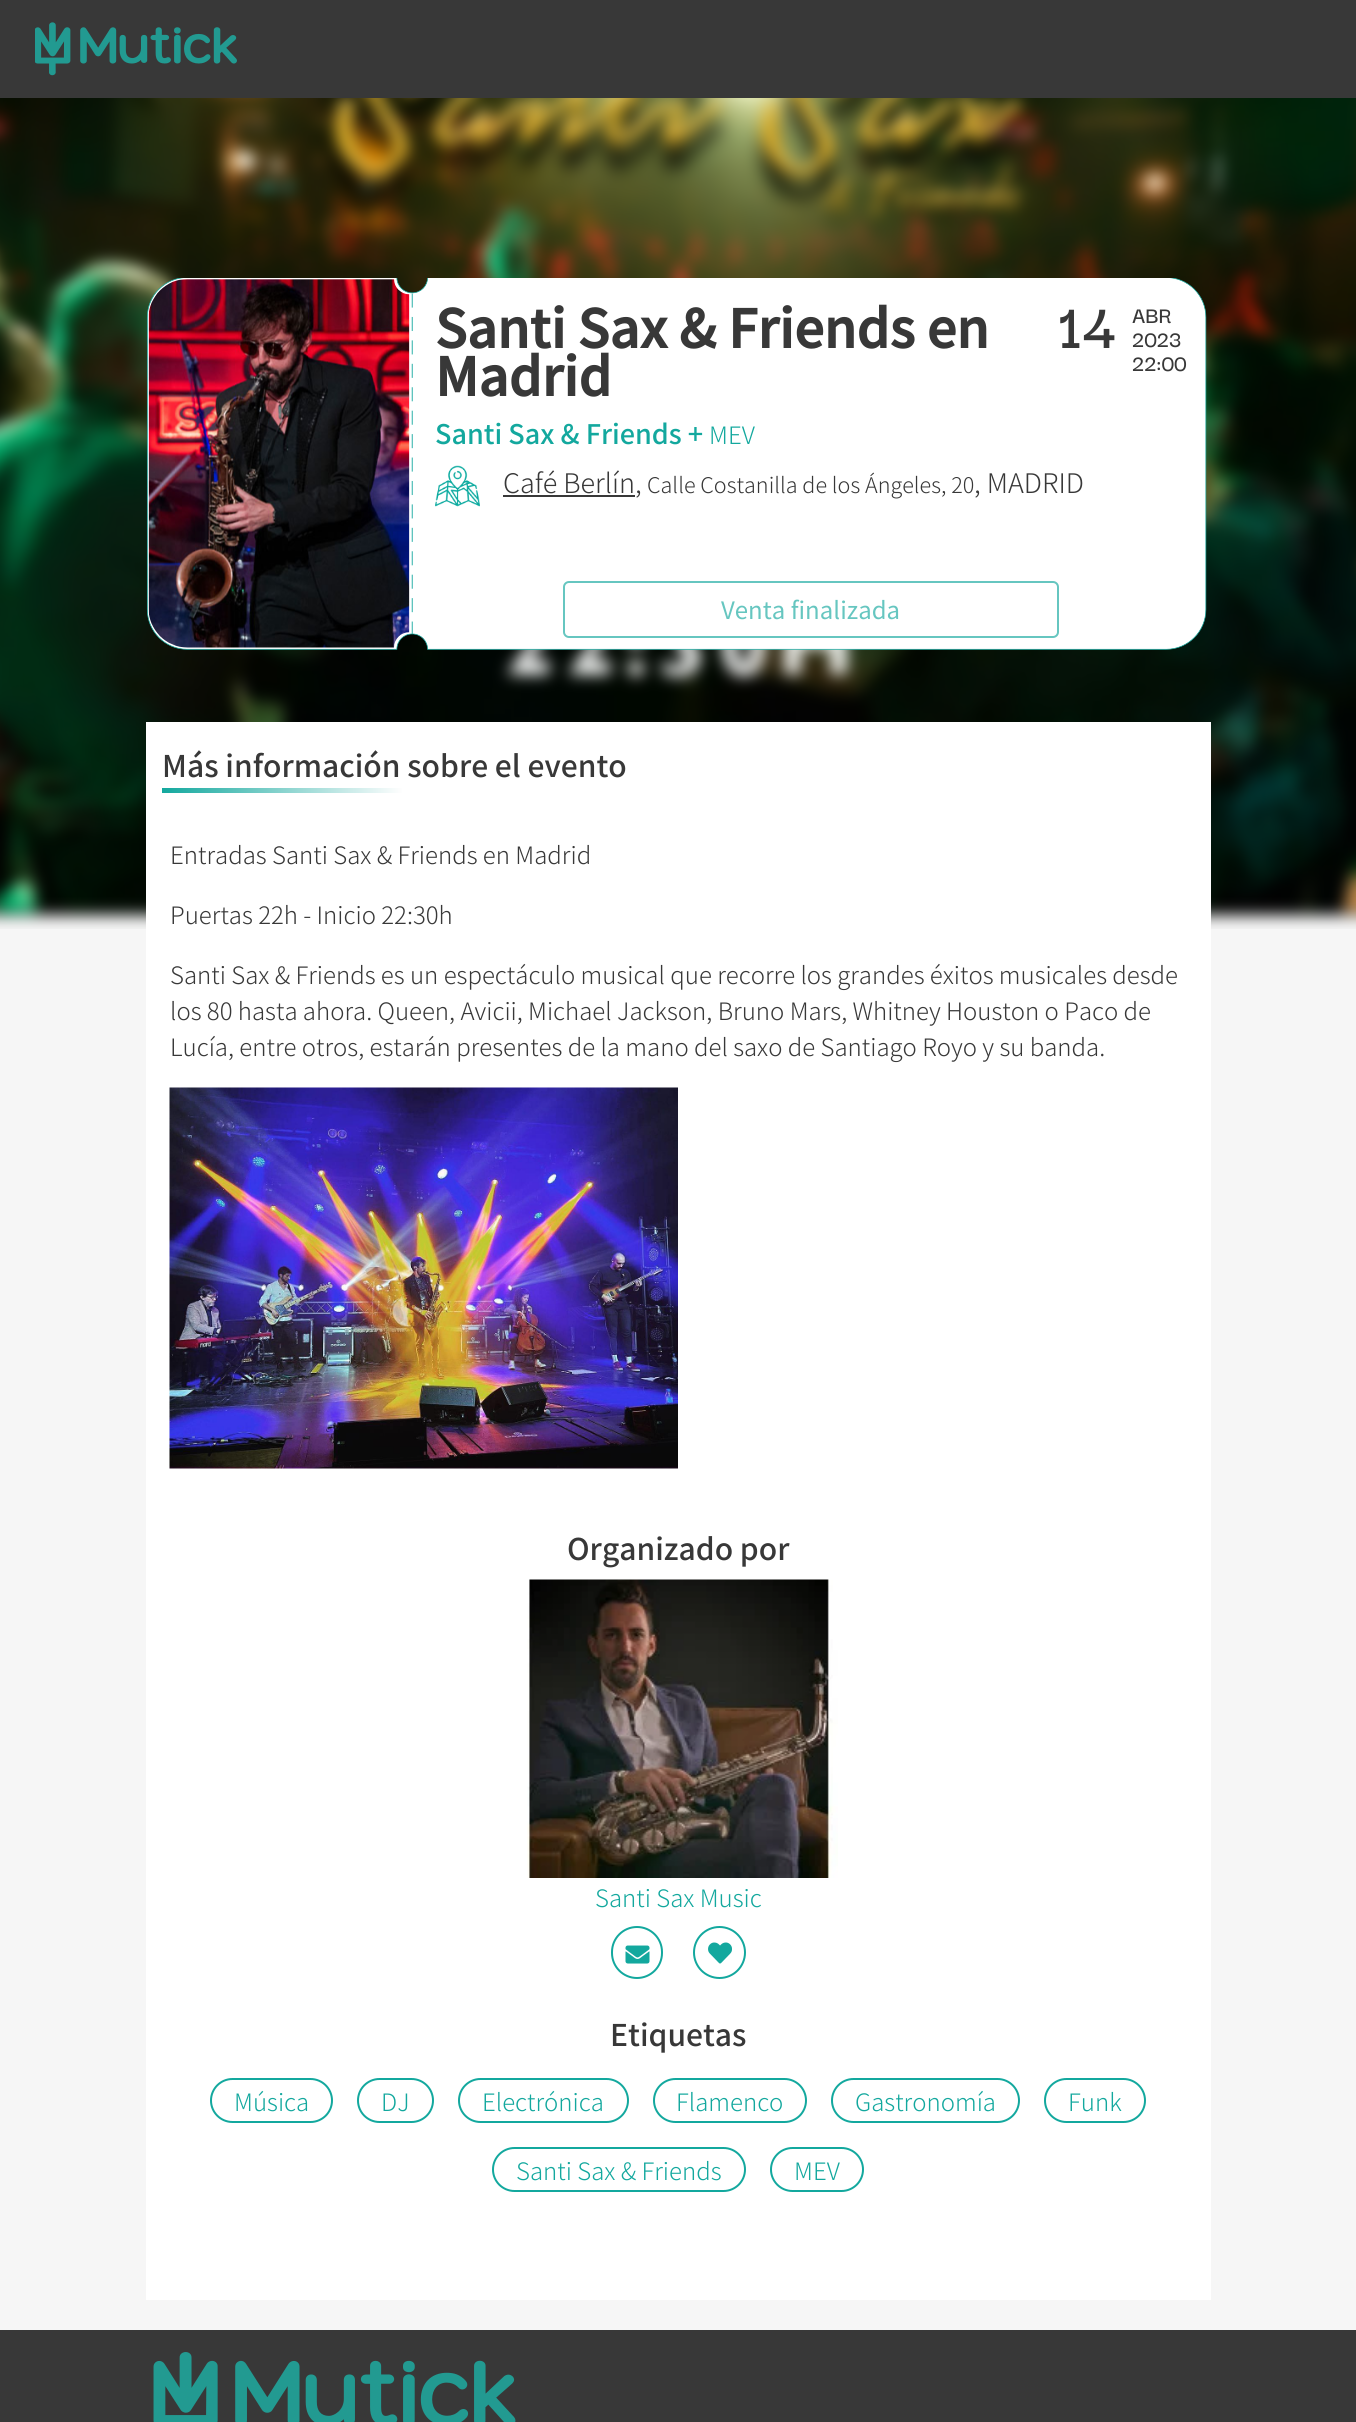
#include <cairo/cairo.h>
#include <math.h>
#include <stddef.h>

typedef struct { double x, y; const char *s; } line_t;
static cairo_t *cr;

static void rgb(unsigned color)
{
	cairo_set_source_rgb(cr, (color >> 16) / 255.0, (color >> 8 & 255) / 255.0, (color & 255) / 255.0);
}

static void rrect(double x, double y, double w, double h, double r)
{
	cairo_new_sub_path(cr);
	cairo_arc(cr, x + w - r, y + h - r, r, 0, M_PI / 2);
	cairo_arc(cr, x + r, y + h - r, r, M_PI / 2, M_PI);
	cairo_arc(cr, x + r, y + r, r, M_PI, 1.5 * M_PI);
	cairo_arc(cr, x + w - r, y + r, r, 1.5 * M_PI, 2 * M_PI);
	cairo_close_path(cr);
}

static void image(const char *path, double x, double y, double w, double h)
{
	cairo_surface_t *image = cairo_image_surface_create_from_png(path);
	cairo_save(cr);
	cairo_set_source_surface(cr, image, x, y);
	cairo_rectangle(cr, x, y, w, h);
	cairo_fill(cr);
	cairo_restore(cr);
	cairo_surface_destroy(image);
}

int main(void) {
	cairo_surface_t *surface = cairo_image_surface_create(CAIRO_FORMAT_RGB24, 1356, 2422);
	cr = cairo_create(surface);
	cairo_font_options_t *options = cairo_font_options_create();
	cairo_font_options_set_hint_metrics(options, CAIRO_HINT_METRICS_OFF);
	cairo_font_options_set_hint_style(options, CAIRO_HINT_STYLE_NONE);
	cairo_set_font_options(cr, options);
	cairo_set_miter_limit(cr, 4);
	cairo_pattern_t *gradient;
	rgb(0xf6f6f6);
	cairo_paint(cr);
	rgb(0x383838);
	cairo_rectangle(cr, 0, 0, 1356, 98);
	cairo_fill(cr);
	image("img/1.png", 35, 22, 202, 54);
	image("img/2.png", 0, 98, 1356, 831);
	image("img/3.png", 146, 278, 1061, 372);
	image("img/4.png", 148, 279, 262, 369);
	image("img/5.png", 435, 465, 45, 42);
	cairo_rectangle(cr, 503, 495, 132, 2);
	cairo_fill(cr);
	rrect(564, 582, 494, 55, 5);
	rgb(0x66c6c0);
	cairo_stroke(cr);
	rgb(0xffffff);
	cairo_rectangle(cr, 146, 722, 1065, 1578);
	cairo_fill(cr);
	gradient = cairo_pattern_create_linear(162, 790, 402, 790);
	cairo_pattern_add_color_stop_rgba(gradient, 0, 0.075, 0.659, 0.62, 1);
	cairo_pattern_add_color_stop_rgba(gradient, 1, 0.996, 0.996, 0.996, 1);
	cairo_set_source(cr, gradient);
	cairo_pattern_destroy(gradient);
	cairo_rectangle(cr, 162, 788, 240, 5);
	cairo_fill(cr);
	image("img/6.png", 169, 1087, 509, 382);
	image("img/7.png", 527, 1579, 311, 299);
	rrect(612, 1927, 50, 51, 25);
	rgb(0x13a89e);
	cairo_stroke(cr);
	image("img/8.png", 625, 1945, 25, 19);
	cairo_arc(cr, 719.5, 1952.5, 25.5, 0, 2 * M_PI);
	cairo_stroke(cr);
	image("img/9.png", 708, 1942, 24, 22);
	rrect(211, 2079, 121, 43, 21.5);
	cairo_stroke(cr);
	rrect(358, 2079, 75, 43, 21.5);
	cairo_stroke(cr);
	rrect(459, 2079, 169, 43, 21.5);
	cairo_stroke(cr);
	rrect(654, 2079, 152, 43, 21.5);
	cairo_stroke(cr);
	rrect(832, 2079, 187, 43, 21.5);
	cairo_stroke(cr);
	rrect(1045, 2079, 100, 43, 21.5);
	cairo_stroke(cr);
	rrect(493, 2148, 252, 43, 21.5);
	cairo_stroke(cr);
	rrect(771, 2148, 92, 43, 21.5);
	cairo_stroke(cr);
	rgb(0x383838);
	cairo_rectangle(cr, 0, 2330, 1356, 92);
	cairo_fill(cr);
	image("img/10.png", 153, 2352, 363, 70);
	cairo_select_font_face(cr, "Noto Sans JP", CAIRO_FONT_SLANT_NORMAL, CAIRO_FONT_WEIGHT_BOLD);
	cairo_set_font_size(cr, 52.5);
	cairo_move_to(cr, 435, 348);
	cairo_show_text(cr, "Santi Sax & Friends en");
	cairo_move_to(cr, 435, 396);
	cairo_show_text(cr, "Madrid");
	cairo_select_font_face(cr, "Darker Grotesque SemiBold", CAIRO_FONT_SLANT_NORMAL, CAIRO_FONT_WEIGHT_NORMAL);
	cairo_set_font_size(cr, 68);
	cairo_move_to(cr, 1058, 348);
	cairo_show_text(cr, "14");
	cairo_set_font_size(cr, 24);
	{
		static const line_t items[] = {
			{1132, 323, "ABR"},
			{1132, 347, "2023"},
			{1132, 371, "22:00"},
		};
		for (size_t i = 0; i < sizeof items / sizeof *items; i++) {
			cairo_move_to(cr, items[i].x, items[i].y);
			cairo_show_text(cr, items[i].s);
		}
	}
	cairo_select_font_face(cr, "Noto Sans JP Medium", CAIRO_FONT_SLANT_NORMAL, CAIRO_FONT_WEIGHT_NORMAL);
	cairo_set_font_size(cr, 27);
	rgb(0x13a89e);
	cairo_move_to(cr, 435, 444);
	cairo_show_text(cr, "Santi Sax & Friends +");
	cairo_select_font_face(cr, "Noto Sans JP Light", CAIRO_FONT_SLANT_NORMAL, CAIRO_FONT_WEIGHT_NORMAL);
	cairo_set_font_size(cr, 24);
	cairo_move_to(cr, 709, 444);
	cairo_show_text(cr, "MEV");
	cairo_set_font_size(cr, 27);
	rgb(0x383838);
	cairo_move_to(cr, 503, 493);
	cairo_show_text(cr, "Café Berlín,");
	cairo_set_font_size(cr, 21.6);
	cairo_move_to(cr, 647, 493);
	cairo_show_text(cr, "Calle Costanilla de los Ángeles, 20");
	cairo_set_font_size(cr, 27);
	cairo_move_to(cr, 974, 493);
	cairo_show_text(cr, ", MADRID");
	cairo_select_font_face(cr, "Noto Sans JP", CAIRO_FONT_SLANT_NORMAL, CAIRO_FONT_WEIGHT_NORMAL);
	cairo_set_font_size(cr, 24);
	rgb(0x66c6c0);
	cairo_move_to(cr, 721, 619);
	cairo_show_text(cr, "Venta finalizada");
	cairo_select_font_face(cr, "Noto Sans JP Medium", CAIRO_FONT_SLANT_NORMAL, CAIRO_FONT_WEIGHT_NORMAL);
	cairo_set_font_size(cr, 30);
	rgb(0x383838);
	cairo_move_to(cr, 162, 777);
	cairo_show_text(cr, "Más información sobre el evento");
	cairo_select_font_face(cr, "Noto Sans JP Light", CAIRO_FONT_SLANT_NORMAL, CAIRO_FONT_WEIGHT_NORMAL);
	cairo_set_font_size(cr, 24);
	{
		static const line_t items[] = {
			{170, 864, "Entradas Santi Sax & Friends en Madrid"},
			{170, 924, "Puertas 22h - Inicio 22:30h"},
			{170, 984, "Santi Sax & Friends es un espectáculo musical que recorre los grandes éxitos musicales desde"},
			{170, 1020, "los 80 hasta ahora. Queen, Avicii, Michael Jackson, Bruno Mars, Whitney Houston o Paco de"},
			{170, 1056, "Lucía, entre otros, estarán presentes de la mano del saxo de Santiago Royo y su banda."},
		};
		for (size_t i = 0; i < sizeof items / sizeof *items; i++) {
			cairo_move_to(cr, items[i].x, items[i].y);
			cairo_show_text(cr, items[i].s);
		}
	}
	cairo_select_font_face(cr, "Noto Sans JP Medium", CAIRO_FONT_SLANT_NORMAL, CAIRO_FONT_WEIGHT_NORMAL);
	cairo_set_font_size(cr, 30);
	cairo_move_to(cr, 567, 1560);
	cairo_show_text(cr, "Organizado por");
	cairo_select_font_face(cr, "Noto Sans JP Light", CAIRO_FONT_SLANT_NORMAL, CAIRO_FONT_WEIGHT_NORMAL);
	cairo_set_font_size(cr, 24);
	rgb(0x13a89e);
	cairo_move_to(cr, 595, 1907);
	cairo_show_text(cr, "Santi Sax Music");
	cairo_select_font_face(cr, "Noto Sans JP Medium", CAIRO_FONT_SLANT_NORMAL, CAIRO_FONT_WEIGHT_NORMAL);
	cairo_set_font_size(cr, 30);
	rgb(0x383838);
	cairo_move_to(cr, 610, 2046);
	cairo_show_text(cr, "Etiquetas");
	cairo_select_font_face(cr, "Noto Sans JP Light", CAIRO_FONT_SLANT_NORMAL, CAIRO_FONT_WEIGHT_NORMAL);
	cairo_set_font_size(cr, 24);
	rgb(0x13a89e);
	{
		static const line_t items[] = {
			{234, 2111, "Música"},
			{381, 2111, "DJ"},
			{482, 2111, "Electrónica"},
			{676, 2111, "Flamenco"},
			{855, 2111, "Gastronomía"},
			{1068, 2111, "Funk"},
			{516, 2180, "Santi Sax & Friends"},
			{794, 2180, "MEV"},
		};
		for (size_t i = 0; i < sizeof items / sizeof *items; i++) {
			cairo_move_to(cr, items[i].x, items[i].y);
			cairo_show_text(cr, items[i].s);
		}
	}
	cairo_surface_write_to_png(surface, "page.png");
	cairo_font_options_destroy(options);
	cairo_destroy(cr);
	cairo_surface_destroy(surface);
	return 0;
}
